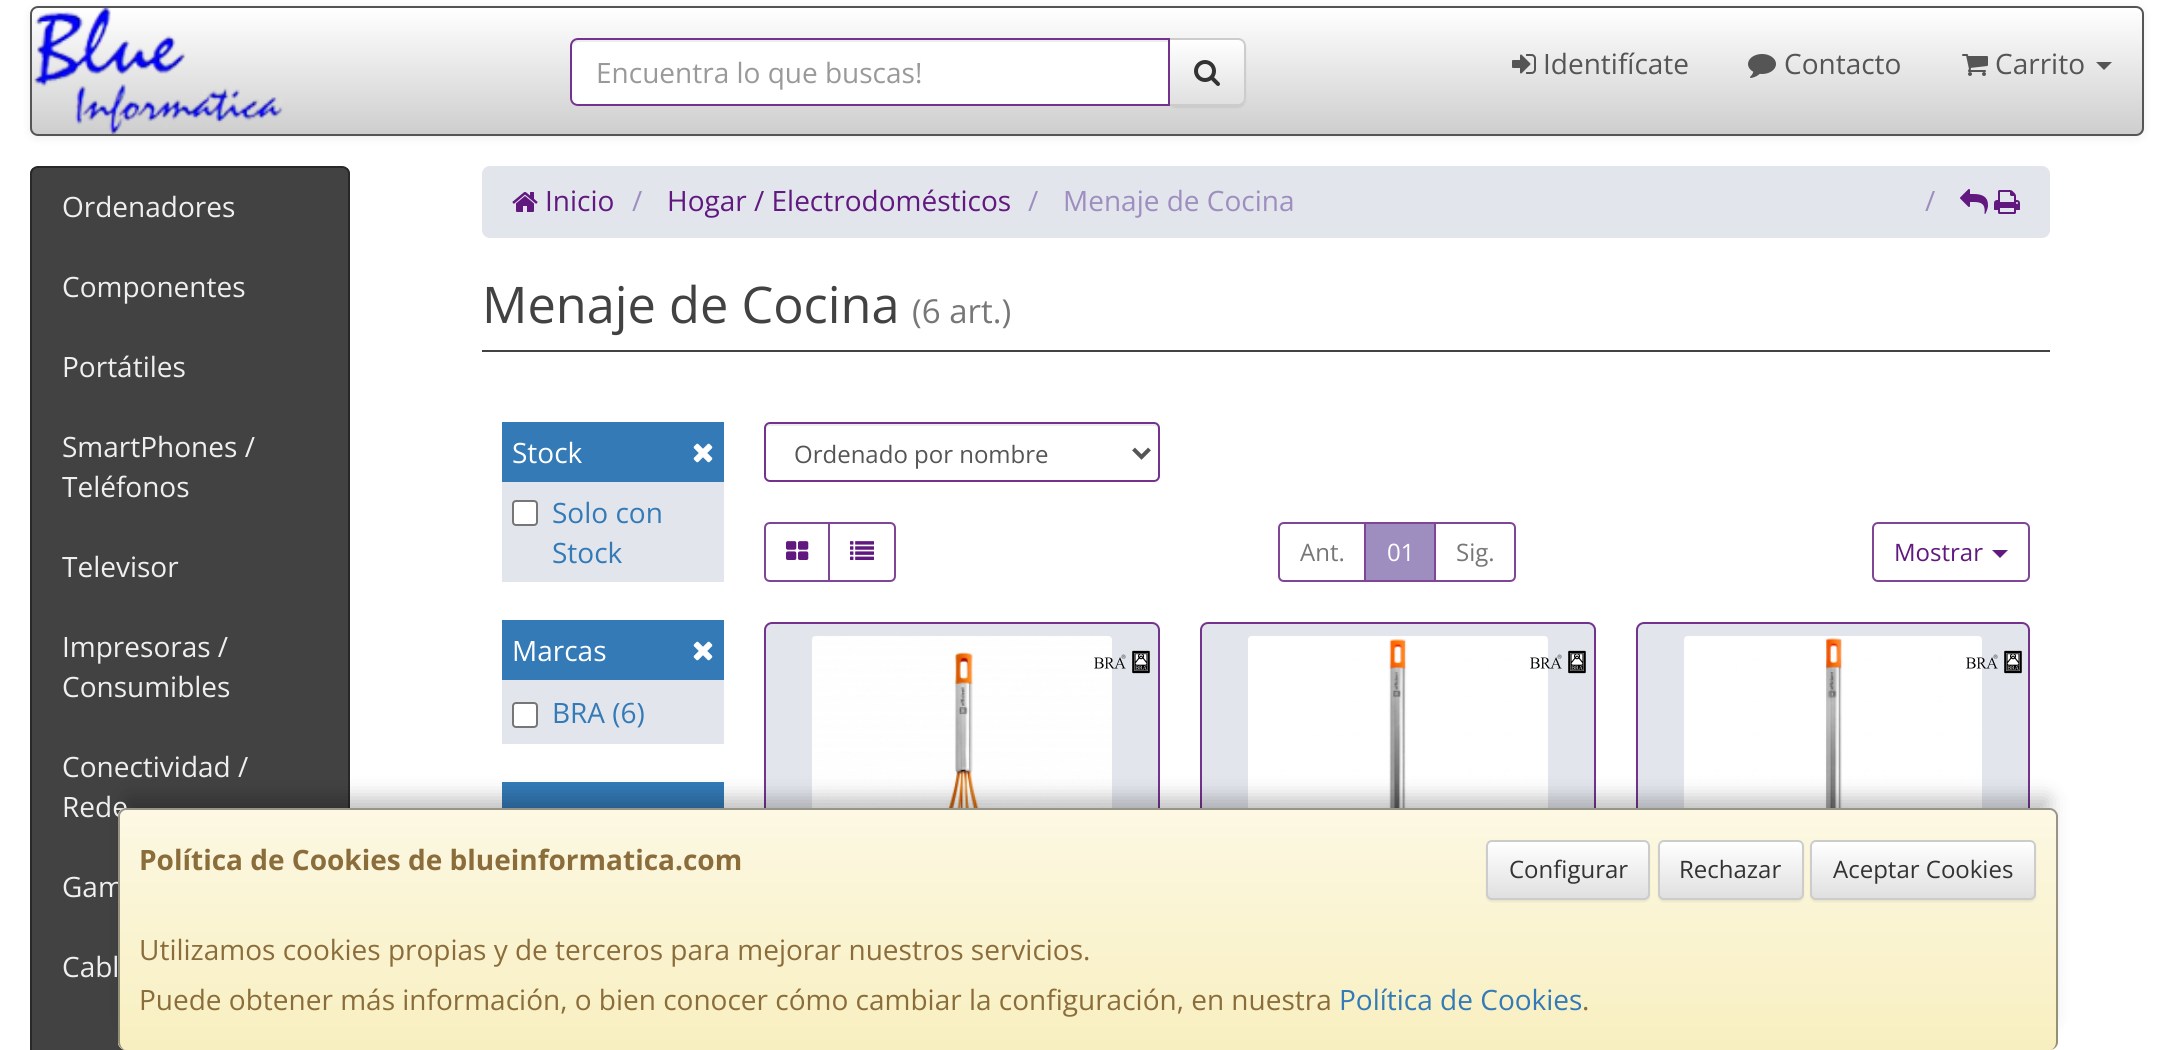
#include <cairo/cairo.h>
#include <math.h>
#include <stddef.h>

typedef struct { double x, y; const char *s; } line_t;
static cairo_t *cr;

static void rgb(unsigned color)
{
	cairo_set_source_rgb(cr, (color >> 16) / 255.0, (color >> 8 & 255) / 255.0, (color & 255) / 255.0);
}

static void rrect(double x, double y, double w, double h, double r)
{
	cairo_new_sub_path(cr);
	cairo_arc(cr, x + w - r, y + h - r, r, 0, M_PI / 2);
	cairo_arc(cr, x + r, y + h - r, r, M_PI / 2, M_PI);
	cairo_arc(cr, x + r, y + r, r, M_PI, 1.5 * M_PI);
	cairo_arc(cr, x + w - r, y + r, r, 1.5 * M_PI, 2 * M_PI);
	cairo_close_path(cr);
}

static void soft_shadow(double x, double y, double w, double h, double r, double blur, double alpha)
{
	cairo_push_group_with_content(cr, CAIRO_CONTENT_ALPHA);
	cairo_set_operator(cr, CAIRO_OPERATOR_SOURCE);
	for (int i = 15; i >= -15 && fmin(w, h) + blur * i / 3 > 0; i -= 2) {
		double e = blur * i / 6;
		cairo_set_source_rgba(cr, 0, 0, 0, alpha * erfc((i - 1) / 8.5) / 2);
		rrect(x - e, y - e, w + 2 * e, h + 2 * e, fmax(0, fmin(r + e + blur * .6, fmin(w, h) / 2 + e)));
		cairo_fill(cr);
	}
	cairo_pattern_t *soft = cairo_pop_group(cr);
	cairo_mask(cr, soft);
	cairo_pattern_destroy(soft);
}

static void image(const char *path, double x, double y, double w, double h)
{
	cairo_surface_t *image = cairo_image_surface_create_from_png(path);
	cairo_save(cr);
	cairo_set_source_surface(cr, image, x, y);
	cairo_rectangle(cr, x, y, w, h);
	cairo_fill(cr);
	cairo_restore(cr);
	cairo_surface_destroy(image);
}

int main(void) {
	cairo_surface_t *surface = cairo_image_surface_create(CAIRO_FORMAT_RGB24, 2174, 1050);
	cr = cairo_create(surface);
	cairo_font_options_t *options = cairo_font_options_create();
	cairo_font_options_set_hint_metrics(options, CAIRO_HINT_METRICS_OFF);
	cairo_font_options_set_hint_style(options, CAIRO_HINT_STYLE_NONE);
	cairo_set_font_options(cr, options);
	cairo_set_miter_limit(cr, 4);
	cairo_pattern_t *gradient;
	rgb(0xffffff);
	cairo_paint(cr);
	rgb(0x000000);
	soft_shadow(30, 8, 2114, 130, 8, 5, 0.07);
	cairo_save(cr);
	rrect(30, 6, 2114, 130, 8);
	cairo_clip(cr);
	gradient = cairo_pattern_create_linear(1087, 8, 1087, 134);
	cairo_pattern_add_color_stop_rgba(gradient, 0, 1, 1, 1, 1);
	cairo_pattern_add_color_stop_rgba(gradient, 1, 0.808, 0.808, 0.808, 1);
	cairo_set_source(cr, gradient);
	cairo_pattern_destroy(gradient);
	cairo_rectangle(cr, 30, 8, 2114, 126);
	cairo_fill(cr);
	cairo_restore(cr);
	rrect(31, 7, 2112, 128, 7);
	rgb(0x555555);
	cairo_stroke(cr);
	image("img/1.png", 33, 8, 250, 126);
	rgb(0x000000);
	soft_shadow(1168, 40, 78, 68, 8, 1, 0.07);
	cairo_save(cr);
	cairo_new_path(cr);
	cairo_move_to(cr, 1168, 38);
	cairo_line_to(cr, 1238, 38);
	cairo_curve_to(cr, 1242.5, 38, 1246, 41.5, 1246, 46);
	cairo_line_to(cr, 1246, 98);
	cairo_curve_to(cr, 1246, 102.5, 1242.5, 106, 1238, 106);
	cairo_line_to(cr, 1168, 106);
	cairo_close_path(cr);
	cairo_clip(cr);
	gradient = cairo_pattern_create_linear(1207, 40, 1207, 104);
	cairo_pattern_add_color_stop_rgba(gradient, 0, 1, 1, 1, 1);
	cairo_pattern_add_color_stop_rgba(gradient, 1, 0.878, 0.878, 0.878, 1);
	cairo_set_source(cr, gradient);
	cairo_pattern_destroy(gradient);
	cairo_rectangle(cr, 1170, 40, 76, 64);
	cairo_fill(cr);
	cairo_restore(cr);
	cairo_new_path(cr);
	cairo_move_to(cr, 1169, 39);
	cairo_line_to(cr, 1238, 39);
	cairo_curve_to(cr, 1242, 39, 1245, 42, 1245, 46);
	cairo_line_to(cr, 1245, 98);
	cairo_curve_to(cr, 1245, 102, 1242, 105, 1238, 105);
	cairo_line_to(cr, 1169, 105);
	cairo_close_path(cr);
	rgb(0xcccccc);
	cairo_stroke(cr);
	rgb(0xffffff);
	cairo_new_path(cr);
	cairo_move_to(cr, 578, 38);
	cairo_line_to(cr, 1170, 38);
	cairo_line_to(cr, 1170, 106);
	cairo_line_to(cr, 578, 106);
	cairo_curve_to(cr, 573.5, 106, 570, 102.5, 570, 98);
	cairo_line_to(cr, 570, 46);
	cairo_curve_to(cr, 570, 41.5, 573.5, 38, 578, 38);
	cairo_close_path(cr);
	cairo_fill(cr);
	rgb(0xececec);
	cairo_new_path(cr);
	cairo_move_to(cr, 578, 42);
	cairo_line_to(cr, 1168, 42);
	cairo_line_to(cr, 1168, 40);
	cairo_line_to(cr, 578, 40);
	cairo_curve_to(cr, 573, 40, 572, 44, 572, 48);
	cairo_curve_to(cr, 572, 45, 575, 42, 578, 42);
	cairo_close_path(cr);
	cairo_fill(cr);
	cairo_new_path(cr);
	cairo_move_to(cr, 578, 39);
	cairo_line_to(cr, 1169, 39);
	cairo_line_to(cr, 1169, 105);
	cairo_line_to(cr, 578, 105);
	cairo_curve_to(cr, 574, 105, 571, 102, 571, 98);
	cairo_line_to(cr, 571, 46);
	cairo_curve_to(cr, 571, 42, 574, 39, 578, 39);
	cairo_close_path(cr);
	rgb(0x73338d);
	cairo_stroke(cr);
	image("img/2.png", 1194, 60, 26, 26);
	image("img/3.png", 1512, 54, 24, 20);
	image("img/4.png", 1748, 54, 28, 24);
	image("img/5.png", 1962, 54, 26, 22);
	rgb(0x555555);
	cairo_new_path(cr);
	cairo_move_to(cr, 2096, 62);
	cairo_line_to(cr, 2112, 62);
	cairo_line_to(cr, 2104, 70);
	cairo_close_path(cr);
	cairo_fill(cr);
	cairo_save(cr);
	rrect(30, 166, 320, 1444, 8);
	cairo_clip(cr);
	rgb(0x424242);
	cairo_rectangle(cr, 30, 168, 320, 882);
	cairo_fill(cr);
	cairo_restore(cr);
	rrect(31, 167, 318, 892, 7);
	rgb(0x282828);
	cairo_stroke(cr);
	rgb(0xe2e5ec);
	rrect(482, 166, 1568, 72, 8);
	cairo_fill(cr);
	image("img/6.png", 512, 192, 26, 20);
	image("img/7.png", 1960, 189, 28, 25);
	image("img/8.png", 1994, 190, 26, 24);
	rgb(0x424242);
	cairo_rectangle(cr, 482, 350, 1568, 2);
	cairo_fill(cr);
	rgb(0x337ab7);
	cairo_rectangle(cr, 502, 422, 222, 60);
	cairo_fill(cr);
	image("img/9.png", 693, 443, 20, 20);
	rgb(0xe2e5ec);
	cairo_rectangle(cr, 502, 482, 222, 100);
	cairo_fill(cr);
	rgb(0xffffff);
	rrect(513, 501, 24, 24, 3);
	cairo_fill_preserve(cr);
	rgb(0x767676);
	cairo_stroke(cr);
	rgb(0x337ab7);
	cairo_rectangle(cr, 502, 620, 222, 60);
	cairo_fill(cr);
	image("img/9.png", 693, 641, 20, 20);
	rgb(0xe2e5ec);
	cairo_rectangle(cr, 502, 680, 222, 64);
	cairo_fill(cr);
	rgb(0xffffff);
	rrect(513, 703, 24, 24, 3);
	cairo_fill_preserve(cr);
	rgb(0x767676);
	cairo_stroke(cr);
	rgb(0x337ab7);
	cairo_rectangle(cr, 502, 782, 222, 26);
	cairo_fill(cr);
	rgb(0xececec);
	cairo_new_path(cr);
	cairo_move_to(cr, 770, 426);
	cairo_line_to(cr, 1154, 426);
	cairo_curve_to(cr, 1156, 426, 1158, 428, 1158, 430);
	cairo_line_to(cr, 1158, 428);
	cairo_curve_to(cr, 1158, 426, 1156, 424, 1154, 424);
	cairo_line_to(cr, 770, 424);
	cairo_curve_to(cr, 768, 424, 766, 426, 766, 428);
	cairo_line_to(cr, 766, 430);
	cairo_curve_to(cr, 766, 428, 768, 426, 770, 426);
	cairo_close_path(cr);
	cairo_fill(cr);
	rrect(765, 423, 394, 58, 5);
	rgb(0x73338d);
	cairo_stroke(cr);
	cairo_new_path(cr);
	cairo_move_to(cr, 1133.5, 449);
	cairo_line_to(cr, 1141.5, 457);
	cairo_line_to(cr, 1149.5, 449);
	rgb(0x555555);
	cairo_set_line_width(cr, 4);
	cairo_stroke(cr);
	cairo_new_path(cr);
	cairo_move_to(cr, 770, 523);
	cairo_line_to(cr, 829, 523);
	cairo_line_to(cr, 829, 581);
	cairo_line_to(cr, 770, 581);
	cairo_curve_to(cr, 767, 581, 765, 579, 765, 576);
	cairo_line_to(cr, 765, 528);
	cairo_curve_to(cr, 765, 525, 767, 523, 770, 523);
	cairo_close_path(cr);
	rgb(0x7f4697);
	cairo_set_line_width(cr, 2);
	cairo_stroke(cr);
	image("img/10.png", 786, 541, 23, 19);
	rgb(0xffffff);
	cairo_new_path(cr);
	cairo_move_to(cr, 829, 523);
	cairo_line_to(cr, 890, 523);
	cairo_curve_to(cr, 893, 523, 895, 525, 895, 528);
	cairo_line_to(cr, 895, 576);
	cairo_curve_to(cr, 895, 579, 893, 581, 890, 581);
	cairo_line_to(cr, 829, 581);
	cairo_close_path(cr);
	cairo_fill_preserve(cr);
	rgb(0x7f4697);
	cairo_stroke(cr);
	image("img/11.png", 850, 541, 24, 19);
	cairo_new_path(cr);
	cairo_move_to(cr, 1284, 523);
	cairo_line_to(cr, 1365, 523);
	cairo_line_to(cr, 1365, 581);
	cairo_line_to(cr, 1284, 581);
	cairo_curve_to(cr, 1281, 581, 1279, 579, 1279, 576);
	cairo_line_to(cr, 1279, 528);
	cairo_curve_to(cr, 1279, 525, 1281, 523, 1284, 523);
	cairo_close_path(cr);
	cairo_stroke(cr);
	cairo_new_path(cr);
	cairo_move_to(cr, 1435, 523);
	cairo_line_to(cr, 1510, 523);
	cairo_curve_to(cr, 1513, 523, 1515, 525, 1515, 528);
	cairo_line_to(cr, 1515, 576);
	cairo_curve_to(cr, 1515, 579, 1513, 581, 1510, 581);
	cairo_line_to(cr, 1435, 581);
	cairo_close_path(cr);
	cairo_stroke(cr);
	rgb(0x9e8ebf);
	cairo_rectangle(cr, 1365, 523, 70, 58);
	cairo_fill_preserve(cr);
	rgb(0x7f4697);
	cairo_stroke(cr);
	rrect(1873, 523, 156, 58, 5);
	cairo_stroke(cr);
	rgb(0x61197f);
	cairo_new_path(cr);
	cairo_move_to(cr, 1992, 550);
	cairo_line_to(cr, 2008, 550);
	cairo_line_to(cr, 2000, 558);
	cairo_close_path(cr);
	cairo_fill(cr);
	rgb(0xe2e5ec);
	rrect(765, 623, 394, 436, 7);
	cairo_fill_preserve(cr);
	rgb(0x73338d);
	cairo_stroke(cr);
	image("img/12.png", 812, 636, 300, 172);
	image("img/13.png", 1094, 650, 56, 24);
	rgb(0xe2e5ec);
	rrect(1201, 623, 394, 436, 7);
	cairo_fill_preserve(cr);
	rgb(0x73338d);
	cairo_stroke(cr);
	image("img/14.png", 1248, 636, 300, 172);
	image("img/15.png", 1530, 650, 56, 24);
	rgb(0xe2e5ec);
	rrect(1637, 623, 392, 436, 7);
	cairo_fill_preserve(cr);
	rgb(0x73338d);
	cairo_stroke(cr);
	image("img/16.png", 1684, 636, 298, 172);
	image("img/17.png", 1966, 650, 56, 24);
	rgb(0x000000);
	soft_shadow(128, 798, 1920, 222, 0, 10, 0.25);
	cairo_select_font_face(cr, "Open Sans", CAIRO_FONT_SLANT_NORMAL, CAIRO_FONT_WEIGHT_NORMAL);
	cairo_set_font_size(cr, 28);
	rgb(0x999999);
	cairo_move_to(cr, 596, 83);
	cairo_show_text(cr, "Encuentra lo que buscas!");
	rgb(0x555555);
	{
		static const line_t items[] = {
			{1543, 74, "Identifícate"},
			{1784, 74, "Contacto"},
			{1995, 74, "Carrito"},
		};
		for (size_t i = 0; i < sizeof items / sizeof *items; i++) {
			cairo_move_to(cr, items[i].x, items[i].y);
			cairo_show_text(cr, items[i].s);
		}
	}
	rgb(0xefefef);
	{
		static const line_t items[] = {
			{62, 217, "Ordenadores"},
			{62, 297, "Componentes"},
			{62, 377, "Portátiles"},
			{62, 457, "SmartPhones /"},
			{62, 497, "Teléfonos"},
			{62, 577, "Televisor"},
			{62, 657, "Impresoras /"},
			{62, 697, "Consumibles"},
			{62, 777, "Conectividad /"},
			{62, 817, "Rede"},
			{62, 897, "Gam"},
			{62, 977, "Cabl"},
		};
		for (size_t i = 0; i < sizeof items / sizeof *items; i++) {
			cairo_move_to(cr, items[i].x, items[i].y);
			cairo_show_text(cr, items[i].s);
		}
	}
	rgb(0x61197f);
	cairo_move_to(cr, 545, 211);
	cairo_show_text(cr, "Inicio");
	rgb(0x9e8ebf);
	cairo_move_to(cr, 632, 211);
	cairo_show_text(cr, "/");
	rgb(0x61197f);
	cairo_move_to(cr, 667, 211);
	cairo_show_text(cr, "Hogar / Electrodomésticos");
	rgb(0x9e8ebf);
	{
		static const line_t items[] = {
			{1028, 211, "/"},
			{1063, 211, "Menaje de Cocina"},
			{1925, 211, "/"},
		};
		for (size_t i = 0; i < sizeof items / sizeof *items; i++) {
			cairo_move_to(cr, items[i].x, items[i].y);
			cairo_show_text(cr, items[i].s);
		}
	}
	cairo_set_font_size(cr, 50.5);
	rgb(0x424242);
	cairo_move_to(cr, 482, 323);
	cairo_show_text(cr, "Menaje de Cocina");
	cairo_set_font_size(cr, 33);
	rgb(0x777777);
	cairo_move_to(cr, 912, 323);
	cairo_show_text(cr, "(6 art.)");
	cairo_set_font_size(cr, 28);
	rgb(0xffffff);
	cairo_move_to(cr, 512, 463);
	cairo_show_text(cr, "Stock");
	rgb(0x337ab7);
	cairo_move_to(cr, 552, 523);
	cairo_show_text(cr, "Solo con");
	cairo_move_to(cr, 552, 563);
	cairo_show_text(cr, "Stock");
	rgb(0xffffff);
	cairo_move_to(cr, 512, 661);
	cairo_show_text(cr, "Marcas");
	rgb(0x337ab7);
	cairo_move_to(cr, 552, 723);
	cairo_show_text(cr, "BRA (6)");
	cairo_set_font_size(cr, 24);
	rgb(0x555555);
	cairo_move_to(cr, 794, 463);
	cairo_show_text(cr, "Ordenado por nombre");
	rgb(0x777777);
	cairo_move_to(cr, 1300, 561);
	cairo_show_text(cr, "Ant.");
	rgb(0xffffff);
	cairo_move_to(cr, 1387, 561);
	cairo_show_text(cr, "01");
	rgb(0x777777);
	cairo_move_to(cr, 1456, 561);
	cairo_show_text(cr, "Sig.");
	rgb(0x61197f);
	cairo_move_to(cr, 1894, 561);
	cairo_show_text(cr, "Mostrar");
	rgb(0xfcf8e3);
	rrect(118, 808, 1940, 242, 8);
	cairo_fill(cr);
	cairo_save(cr);
	rrect(118, 808, 1940, 242, 8);
	cairo_clip(cr);
	gradient = cairo_pattern_create_linear(1088, 810, 1088, 1050);
	cairo_pattern_add_color_stop_rgba(gradient, 0, 0.988, 0.973, 0.89, 1);
	cairo_pattern_add_color_stop_rgba(gradient, 1, 0.973, 0.937, 0.753, 1);
	cairo_set_source(cr, gradient);
	cairo_pattern_destroy(gradient);
	cairo_new_path(cr);
	cairo_move_to(cr, 118, 810);
	cairo_line_to(cr, 2058, 810);
	cairo_line_to(cr, 2058, 1042);
	cairo_curve_to(cr, 2058, 1046.5, 2054.5, 1050, 2050, 1050);
	cairo_line_to(cr, 126, 1050);
	cairo_curve_to(cr, 121.5, 1050, 118, 1046.5, 118, 1042);
	cairo_close_path(cr);
	cairo_fill(cr);
	cairo_restore(cr);
	cairo_set_source_rgba(cr, 0, 0, 0, 0.4);
	cairo_set_fill_rule(cr, CAIRO_FILL_RULE_EVEN_ODD);
	cairo_new_path(cr);
	cairo_move_to(cr, 126, 808);
	cairo_line_to(cr, 2050, 808);
	cairo_curve_to(cr, 2054, 808, 2058, 812, 2058, 816);
	cairo_line_to(cr, 2058, 1042);
	cairo_curve_to(cr, 2058, 1046, 2054, 1050, 2050, 1050);
	cairo_line_to(cr, 126, 1050);
	cairo_curve_to(cr, 122, 1050, 118, 1046, 118, 1042);
	cairo_line_to(cr, 118, 816);
	cairo_curve_to(cr, 118, 812, 122, 808, 126, 808);
	cairo_close_path(cr);
	cairo_move_to(cr, 126, 810);
	cairo_line_to(cr, 2050, 810);
	cairo_curve_to(cr, 2053, 810, 2056, 813, 2056, 816);
	cairo_line_to(cr, 2056, 1042);
	cairo_curve_to(cr, 2056, 1046, 2053, 1050, 2050, 1050);
	cairo_line_to(cr, 126, 1050);
	cairo_curve_to(cr, 123, 1050, 120, 1046, 120, 1042);
	cairo_line_to(cr, 120, 816);
	cairo_curve_to(cr, 120, 813, 123, 810, 126, 810);
	cairo_close_path(cr);
	cairo_fill(cr);
	cairo_select_font_face(cr, "Open Sans", CAIRO_FONT_SLANT_NORMAL, CAIRO_FONT_WEIGHT_BOLD);
	cairo_set_font_size(cr, 28);
	rgb(0x8a6d3b);
	cairo_move_to(cr, 139, 870);
	cairo_show_text(cr, "Política de Cookies de blueinformatica.com");
	rgb(0x000000);
	soft_shadow(1486, 842, 164, 60, 6, 1, 0.07);
	cairo_save(cr);
	cairo_set_fill_rule(cr, CAIRO_FILL_RULE_WINDING);
	rrect(1486, 840, 164, 60, 6);
	cairo_clip(cr);
	gradient = cairo_pattern_create_linear(1568, 842, 1568, 898);
	cairo_pattern_add_color_stop_rgba(gradient, 0, 1, 1, 1, 1);
	cairo_pattern_add_color_stop_rgba(gradient, 1, 0.878, 0.878, 0.878, 1);
	cairo_set_source(cr, gradient);
	cairo_pattern_destroy(gradient);
	cairo_rectangle(cr, 1486, 842, 164, 56);
	cairo_fill(cr);
	cairo_restore(cr);
	rrect(1487, 841, 162, 58, 5);
	rgb(0xcccccc);
	cairo_stroke(cr);
	cairo_select_font_face(cr, "Open Sans", CAIRO_FONT_SLANT_NORMAL, CAIRO_FONT_WEIGHT_NORMAL);
	cairo_set_font_size(cr, 24);
	rgb(0x333333);
	cairo_move_to(cr, 1509, 878);
	cairo_show_text(cr, "Configurar");
	rgb(0x000000);
	soft_shadow(1658, 842, 146, 60, 6, 1, 0.07);
	cairo_save(cr);
	cairo_set_fill_rule(cr, CAIRO_FILL_RULE_WINDING);
	rrect(1658, 840, 146, 60, 6);
	cairo_clip(cr);
	gradient = cairo_pattern_create_linear(1731, 842, 1731, 898);
	cairo_pattern_add_color_stop_rgba(gradient, 0, 1, 1, 1, 1);
	cairo_pattern_add_color_stop_rgba(gradient, 1, 0.878, 0.878, 0.878, 1);
	cairo_set_source(cr, gradient);
	cairo_pattern_destroy(gradient);
	cairo_rectangle(cr, 1658, 842, 146, 56);
	cairo_fill(cr);
	cairo_restore(cr);
	rrect(1659, 841, 144, 58, 5);
	rgb(0xcccccc);
	cairo_stroke(cr);
	rgb(0x333333);
	cairo_move_to(cr, 1679, 878);
	cairo_show_text(cr, "Rechazar");
	rgb(0x000000);
	soft_shadow(1810, 842, 226, 60, 6, 1, 0.07);
	cairo_save(cr);
	cairo_set_fill_rule(cr, CAIRO_FILL_RULE_WINDING);
	rrect(1810, 840, 226, 60, 6);
	cairo_clip(cr);
	gradient = cairo_pattern_create_linear(1923, 842, 1923, 898);
	cairo_pattern_add_color_stop_rgba(gradient, 0, 1, 1, 1, 1);
	cairo_pattern_add_color_stop_rgba(gradient, 1, 0.878, 0.878, 0.878, 1);
	cairo_set_source(cr, gradient);
	cairo_pattern_destroy(gradient);
	cairo_rectangle(cr, 1810, 842, 226, 56);
	cairo_fill(cr);
	cairo_restore(cr);
	rrect(1811, 841, 224, 58, 5);
	rgb(0xcccccc);
	cairo_stroke(cr);
	rgb(0x333333);
	cairo_move_to(cr, 1833, 878);
	cairo_show_text(cr, "Aceptar Cookies");
	cairo_set_font_size(cr, 28);
	rgb(0x8a6d3b);
	cairo_move_to(cr, 139, 960);
	cairo_show_text(cr, "Utilizamos cookies propias y de terceros para mejorar nuestros servicios.");
	cairo_move_to(cr, 139, 1010);
	cairo_show_text(cr, "Puede obtener más información, o bien conocer cómo cambiar la configuración, en nuestra");
	rgb(0x337ab7);
	cairo_move_to(cr, 1339, 1010);
	cairo_show_text(cr, "Política de Cookies");
	rgb(0x8a6d3b);
	cairo_move_to(cr, 1582, 1010);
	cairo_show_text(cr, ".");
	cairo_surface_write_to_png(surface, "page.png");
	cairo_font_options_destroy(options);
	cairo_destroy(cr);
	cairo_surface_destroy(surface);
	return 0;
}
